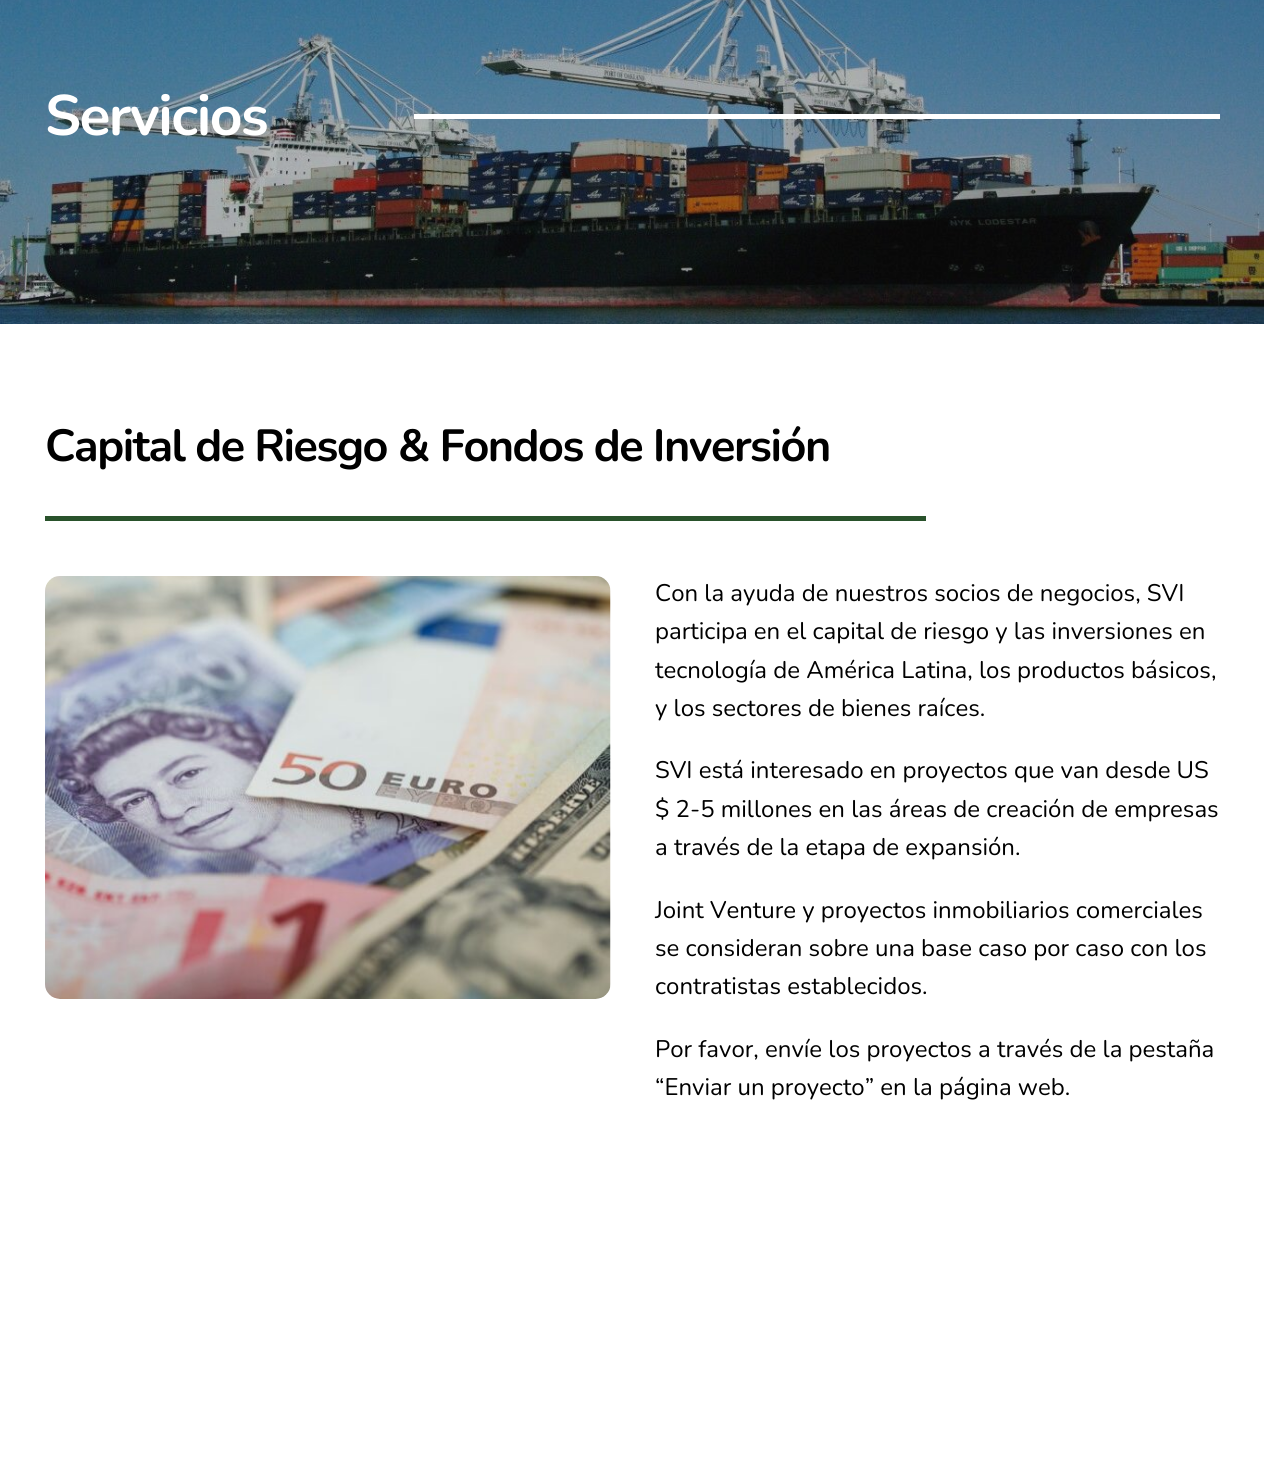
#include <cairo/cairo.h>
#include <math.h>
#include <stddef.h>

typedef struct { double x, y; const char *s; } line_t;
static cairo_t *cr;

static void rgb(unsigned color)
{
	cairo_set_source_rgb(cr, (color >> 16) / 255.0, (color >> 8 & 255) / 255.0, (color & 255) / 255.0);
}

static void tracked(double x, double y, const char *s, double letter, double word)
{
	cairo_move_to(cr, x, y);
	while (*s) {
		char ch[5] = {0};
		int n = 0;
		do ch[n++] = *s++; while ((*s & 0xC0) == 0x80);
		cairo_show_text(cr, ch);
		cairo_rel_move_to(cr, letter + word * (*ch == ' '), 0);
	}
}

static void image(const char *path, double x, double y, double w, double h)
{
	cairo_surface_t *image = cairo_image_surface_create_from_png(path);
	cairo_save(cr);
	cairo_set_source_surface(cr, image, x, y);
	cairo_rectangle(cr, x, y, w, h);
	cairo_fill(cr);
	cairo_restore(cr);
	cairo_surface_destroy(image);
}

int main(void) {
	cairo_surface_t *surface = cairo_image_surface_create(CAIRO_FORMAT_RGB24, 1264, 1469);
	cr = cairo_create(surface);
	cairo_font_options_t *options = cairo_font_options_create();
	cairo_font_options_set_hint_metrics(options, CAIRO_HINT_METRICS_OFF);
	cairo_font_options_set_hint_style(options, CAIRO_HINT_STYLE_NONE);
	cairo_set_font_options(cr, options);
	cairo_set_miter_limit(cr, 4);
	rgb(0xffffff);
	cairo_paint(cr);
	image("img/1.png", 0, 0, 1264, 324);
	rgb(0xffffff);
	cairo_rectangle(cr, 414, 114, 806, 5);
	cairo_fill(cr);
	rgb(0x29522b);
	cairo_rectangle(cr, 45, 516, 881, 5);
	cairo_fill(cr);
	image("img/2.png", 45, 576, 566, 423);
	cairo_select_font_face(cr, "Nunito ExtraLight", CAIRO_FONT_SLANT_NORMAL, CAIRO_FONT_WEIGHT_NORMAL);
	cairo_set_font_size(cr, 57);
	rgb(0xffffff);
	tracked(45, 135, "Servicios", -1.5, 0);
	cairo_set_font_size(cr, 45);
	rgb(0x000000);
	tracked(45, 461, "Capital de Riesgo & Fondos de Inversión", -1.5, 0);
	cairo_select_font_face(cr, "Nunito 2 ExtraLight", CAIRO_FONT_SLANT_NORMAL, CAIRO_FONT_WEIGHT_NORMAL);
	cairo_set_font_size(cr, 24);
	{
		static const line_t items[] = {
			{655, 601, "Con la ayuda de nuestros socios de negocios, SVI"},
			{655, 639, "participa en el capital de riesgo y las inversiones en"},
			{655, 678, "tecnología de América Latina, los productos básicos,"},
			{655, 716, "y los sectores de bienes raíces."},
			{655, 778, "SVI está interesado en proyectos que van desde US"},
			{655, 817, "$ 2-5 millones en las áreas de creación de empresas"},
			{655, 855, "a través de la etapa de expansión."},
			{655, 918, "Joint Venture y proyectos inmobiliarios comerciales"},
			{655, 956, "se consideran sobre una base caso por caso con los"},
			{655, 994, "contratistas establecidos."},
			{655, 1057, "Por favor, envíe los proyectos a través de la pestaña"},
			{655, 1095, "“Enviar un proyecto” en la página web."},
		};
		for (size_t i = 0; i < sizeof items / sizeof *items; i++) {
			cairo_move_to(cr, items[i].x, items[i].y);
			cairo_show_text(cr, items[i].s);
		}
	}
	cairo_surface_write_to_png(surface, "page.png");
	cairo_font_options_destroy(options);
	cairo_destroy(cr);
	cairo_surface_destroy(surface);
	return 0;
}
